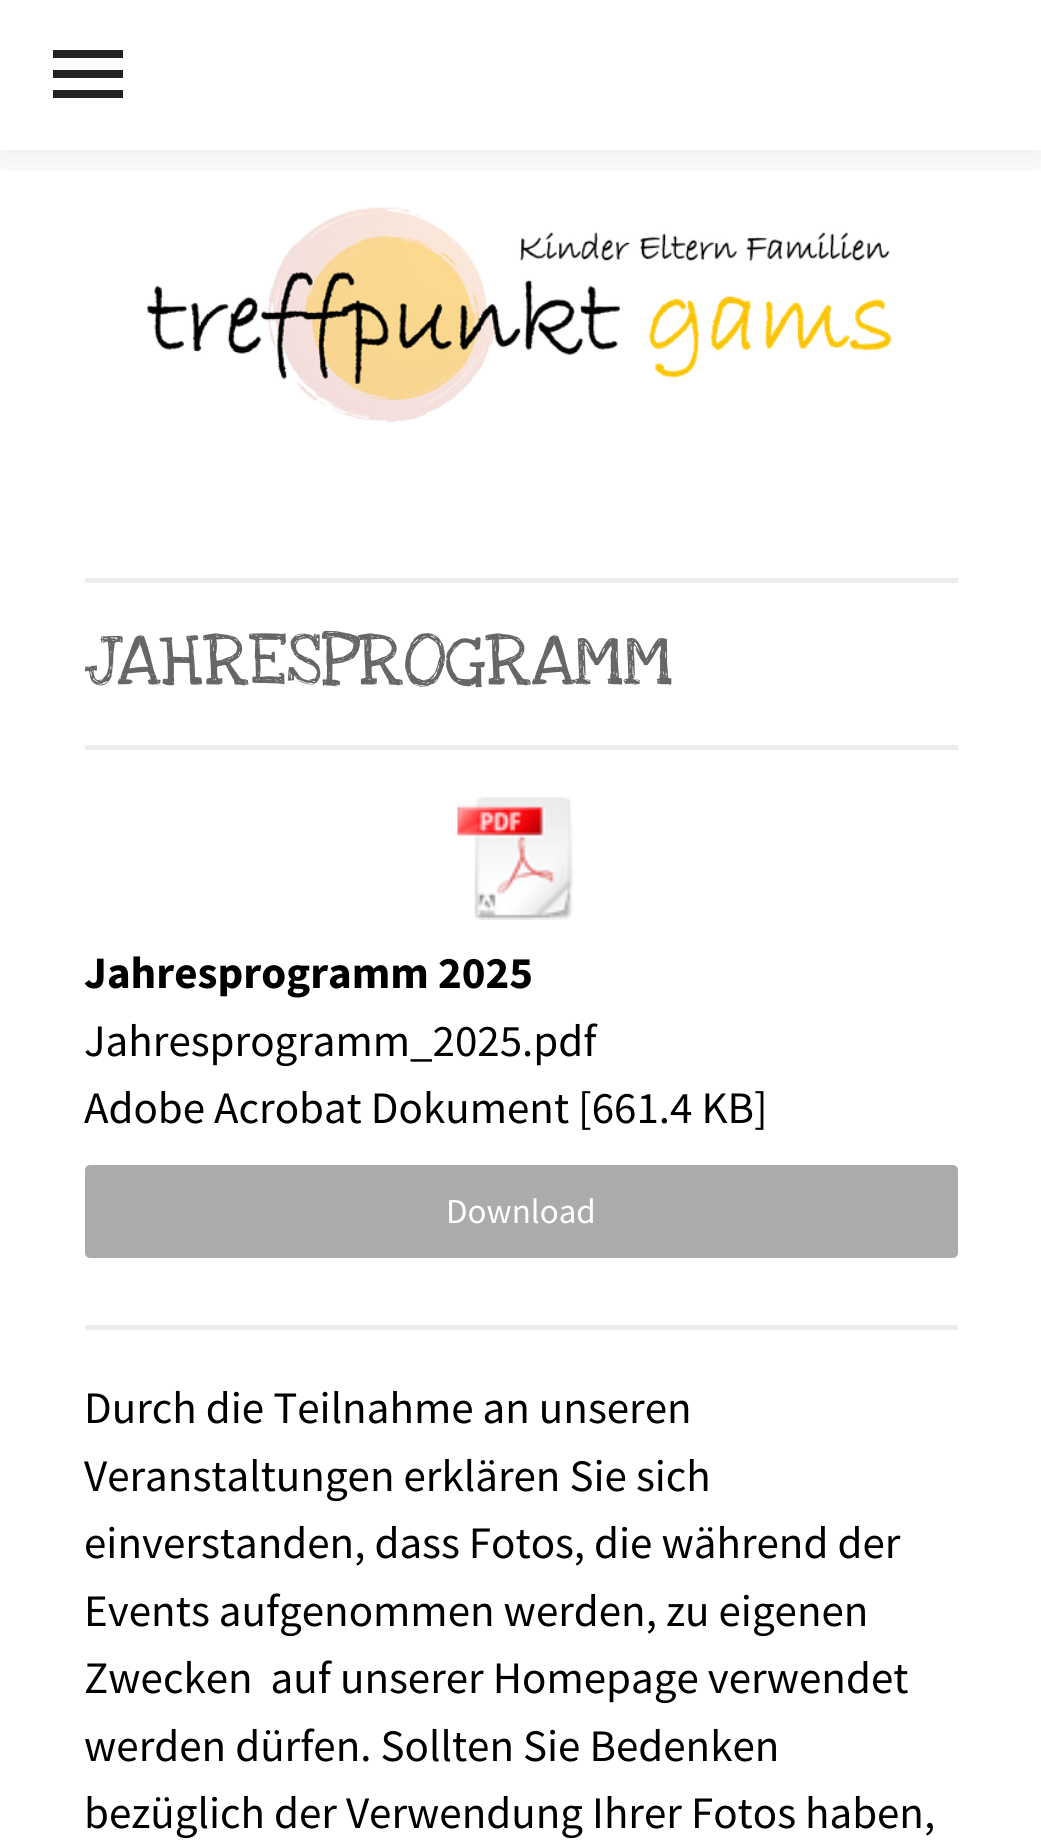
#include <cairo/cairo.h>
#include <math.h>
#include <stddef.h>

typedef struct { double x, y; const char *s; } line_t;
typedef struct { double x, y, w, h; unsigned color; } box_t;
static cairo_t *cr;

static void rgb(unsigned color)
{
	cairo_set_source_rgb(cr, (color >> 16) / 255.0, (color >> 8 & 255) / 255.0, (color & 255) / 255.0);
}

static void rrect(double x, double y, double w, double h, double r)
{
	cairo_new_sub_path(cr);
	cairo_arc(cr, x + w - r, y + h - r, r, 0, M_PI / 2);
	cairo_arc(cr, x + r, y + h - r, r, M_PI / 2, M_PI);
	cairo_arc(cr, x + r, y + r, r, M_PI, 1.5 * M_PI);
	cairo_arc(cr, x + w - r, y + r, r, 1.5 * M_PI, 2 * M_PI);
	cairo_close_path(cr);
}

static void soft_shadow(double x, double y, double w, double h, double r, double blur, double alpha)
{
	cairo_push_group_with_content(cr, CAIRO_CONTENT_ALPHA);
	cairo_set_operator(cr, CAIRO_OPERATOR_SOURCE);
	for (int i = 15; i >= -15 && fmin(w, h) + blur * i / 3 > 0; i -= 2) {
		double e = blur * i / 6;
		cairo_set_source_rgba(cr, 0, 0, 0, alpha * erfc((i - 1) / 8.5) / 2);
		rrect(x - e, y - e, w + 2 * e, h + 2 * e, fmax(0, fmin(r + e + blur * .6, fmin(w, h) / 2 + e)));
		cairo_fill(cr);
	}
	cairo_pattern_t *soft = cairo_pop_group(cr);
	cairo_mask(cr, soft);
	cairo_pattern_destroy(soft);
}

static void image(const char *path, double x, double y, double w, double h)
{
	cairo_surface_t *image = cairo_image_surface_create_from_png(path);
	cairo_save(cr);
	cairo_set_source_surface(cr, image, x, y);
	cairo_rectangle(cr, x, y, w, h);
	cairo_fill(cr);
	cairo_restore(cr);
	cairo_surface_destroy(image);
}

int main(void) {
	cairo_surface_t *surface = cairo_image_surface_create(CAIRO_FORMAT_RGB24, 1041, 1847);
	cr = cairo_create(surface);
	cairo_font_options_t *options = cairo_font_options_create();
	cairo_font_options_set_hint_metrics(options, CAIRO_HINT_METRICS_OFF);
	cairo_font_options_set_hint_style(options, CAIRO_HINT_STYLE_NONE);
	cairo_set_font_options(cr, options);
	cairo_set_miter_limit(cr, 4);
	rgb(0xffffff);
	cairo_paint(cr);
	image("img/1.png", 147, 207, 745, 215);
	cairo_save(cr);
	cairo_rectangle(cr, 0, 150, 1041, 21);
	cairo_clip(cr);
	rgb(0x000000);
	soft_shadow(0, 0, 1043, 150, 0, 25, 0.1);
	cairo_restore(cr);
	{
		static const box_t items[] = {
			{53, 70, 70, 8, 0x222222},
			{53, 50, 70, 8, 0x222222},
			{53, 90, 70, 8, 0x222222},
			{85, 578, 873, 5, 0xededed},
			{85, 745, 873, 5, 0xededed},
		};
		for (size_t i = 0; i < sizeof items / sizeof *items; i++) {
			rgb(items[i].color);
			cairo_rectangle(cr, items[i].x, items[i].y, items[i].w, items[i].h);
			cairo_fill(cr);
		}
	}
	image("img/2.png", 457, 797, 116, 123);
	rgb(0xababab);
	rrect(86.5, 1166.5, 870, 90, 3.5);
	cairo_fill_preserve(cr);
	cairo_set_line_width(cr, 3);
	cairo_stroke(cr);
	rgb(0xededed);
	cairo_rectangle(cr, 85, 1325, 873, 5);
	cairo_fill(cr);
	cairo_select_font_face(cr, "Love Ya Like A Sister", CAIRO_FONT_SLANT_NORMAL, CAIRO_FONT_WEIGHT_NORMAL);
	cairo_set_font_size(cr, 75);
	rgb(0x666666);
	cairo_move_to(cr, 84, 684);
	cairo_show_text(cr, "JAHRESPROGRAMM");
	cairo_select_font_face(cr, "Source Sans Pro", CAIRO_FONT_SLANT_NORMAL, CAIRO_FONT_WEIGHT_BOLD);
	cairo_set_font_size(cr, 45);
	rgb(0x000000);
	cairo_move_to(cr, 84, 988);
	cairo_show_text(cr, "Jahresprogramm 2025");
	cairo_select_font_face(cr, "Source Sans Pro", CAIRO_FONT_SLANT_NORMAL, CAIRO_FONT_WEIGHT_NORMAL);
	cairo_move_to(cr, 84, 1056);
	cairo_show_text(cr, "Jahresprogramm_2025.pdf");
	cairo_move_to(cr, 84, 1123);
	cairo_show_text(cr, "Adobe Acrobat Dokument [661.4 KB]");
	cairo_set_font_size(cr, 35);
	rgb(0xffffff);
	cairo_move_to(cr, 446, 1223);
	cairo_show_text(cr, "Download");
	cairo_set_font_size(cr, 45);
	rgb(0x000000);
	{
		static const line_t items[] = {
			{84, 1423, "Durch die Teilnahme an unseren"},
			{84, 1491, "Veranstaltungen erklären Sie sich"},
			{84, 1558, "einverstanden, dass Fotos, die während der"},
			{84, 1626, "Events aufgenommen werden, zu eigenen"},
			{84, 1693, "Zwecken  auf unserer Homepage verwendet"},
			{84, 1761, "werden dürfen. Sollten Sie Bedenken"},
			{84, 1828, "bezüglich der Verwendung Ihrer Fotos haben,"},
		};
		for (size_t i = 0; i < sizeof items / sizeof *items; i++) {
			cairo_move_to(cr, items[i].x, items[i].y);
			cairo_show_text(cr, items[i].s);
		}
	}
	cairo_surface_write_to_png(surface, "page.png");
	cairo_font_options_destroy(options);
	cairo_destroy(cr);
	cairo_surface_destroy(surface);
	return 0;
}
